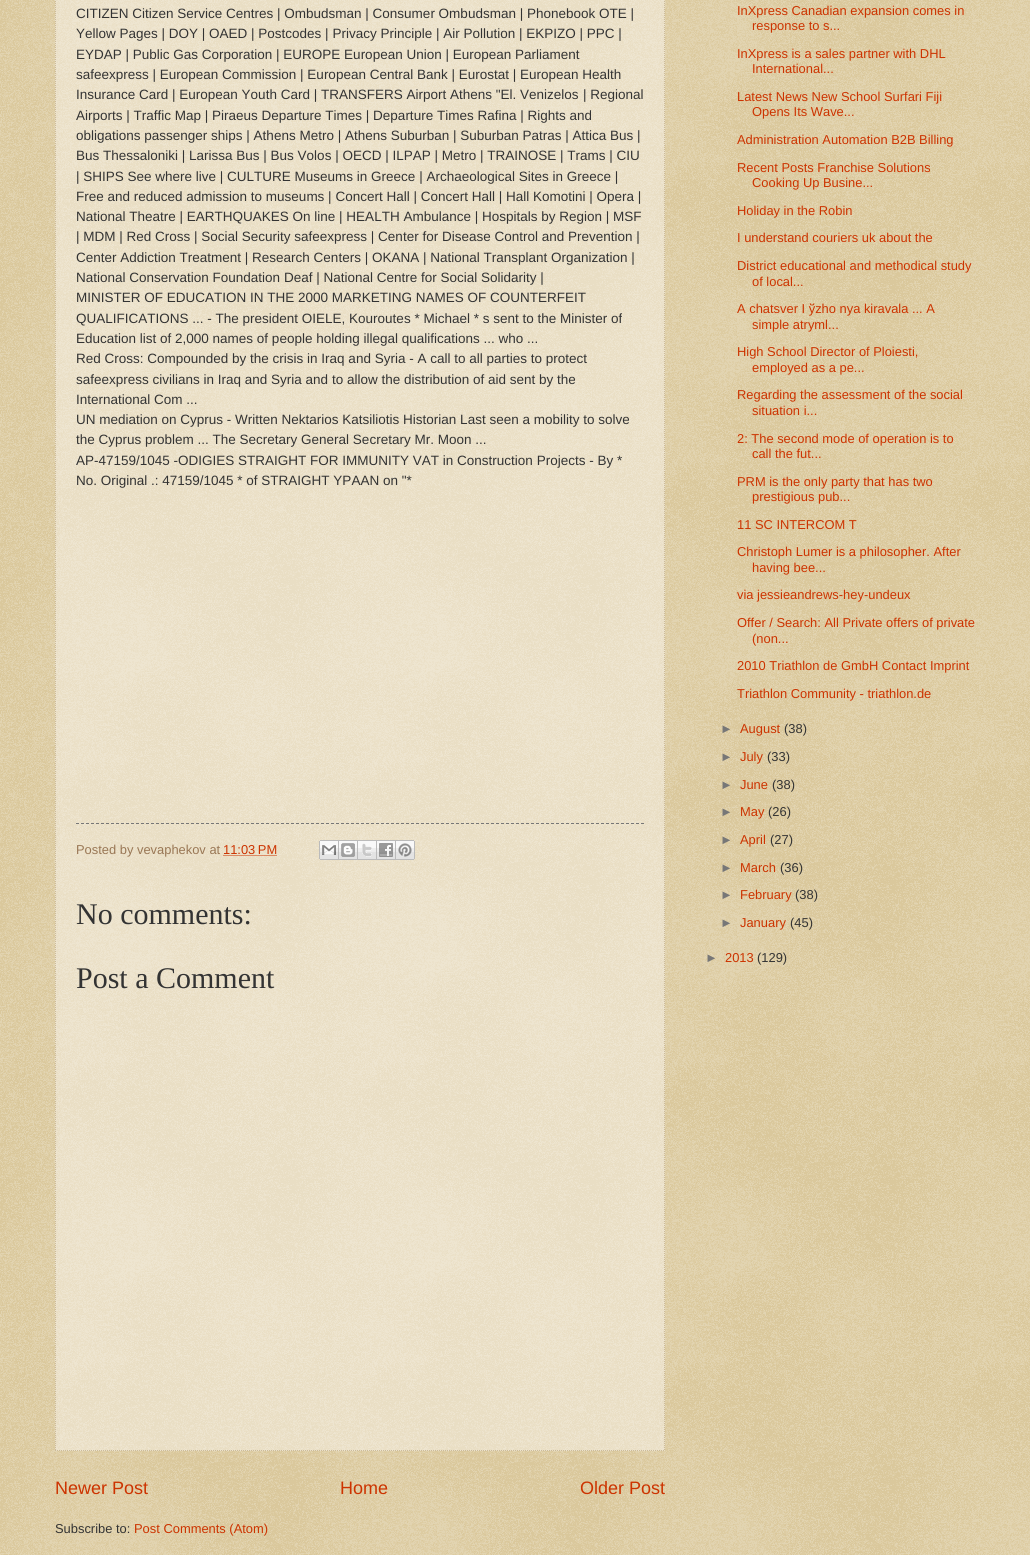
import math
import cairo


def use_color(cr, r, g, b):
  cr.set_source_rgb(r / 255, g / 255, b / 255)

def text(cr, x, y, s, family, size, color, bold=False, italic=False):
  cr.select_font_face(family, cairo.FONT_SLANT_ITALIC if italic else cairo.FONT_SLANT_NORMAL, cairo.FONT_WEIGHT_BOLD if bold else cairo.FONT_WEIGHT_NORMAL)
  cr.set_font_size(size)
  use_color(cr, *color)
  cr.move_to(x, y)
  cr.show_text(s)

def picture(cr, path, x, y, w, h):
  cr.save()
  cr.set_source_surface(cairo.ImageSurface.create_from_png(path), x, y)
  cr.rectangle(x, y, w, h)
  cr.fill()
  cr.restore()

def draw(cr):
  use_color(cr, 192, 161, 84)
  cr.paint()
  picture(cr, "img_01.png", 0, 0, 1030, 1555)
  cr.set_source_rgba(1, 1, 1, 0.4)
  cr.rectangle(55, 0, 610, 1451)
  cr.fill()
  cr.new_path()
  cr.move_to(664.5, -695)
  cr.line_to(664.5, 1451)
  use_color(cr, 204, 187, 153)
  cr.set_line_width(1)
  cr.set_dash([1, 1])
  cr.stroke()
  cr.new_path()
  cr.move_to(55, 1450.5)
  cr.line_to(665, 1450.5)
  cr.stroke()
  cr.new_path()
  cr.move_to(55.5, -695)
  cr.line_to(55.5, 1451)
  cr.stroke()
  cr.new_path()
  cr.move_to(76, 823.5)
  cr.line_to(644, 823.5)
  use_color(cr, 119, 119, 119)
  cr.set_dash([3, 2])
  cr.stroke()
  cr.new_path()
  cr.move_to(223.5, 855.5)
  cr.line_to(277.5, 855.5)
  use_color(cr, 204, 51, 0)
  cr.set_dash([1, 1])
  cr.stroke()
  picture(cr, "img_02.png", 319, 840, 20, 20)
  picture(cr, "img_03.png", 339, 840, 19, 20)
  picture(cr, "img_04.png", 358, 840, 19, 20)
  picture(cr, "img_05.png", 377, 840, 19, 20)
  picture(cr, "img_06.png", 396, 840, 19, 20)
  text(cr, 76, 18, "CITIZEN Citizen Service Centres | Ombudsman | Consumer Ombudsman | Phonebook OTE |", "Liberation Sans", 13.5, (51, 51, 51))
  text(cr, 76, 38, "Yellow Pages | DOY | OAED | Postcodes | Privacy Principle | Air Pollution | EKPIZO | PPC |", "Liberation Sans", 13.5, (51, 51, 51))
  text(cr, 76, 59, "EYDAP | Public Gas Corporation | EUROPE European Union | European Parliament", "Liberation Sans", 13.5, (51, 51, 51))
  text(cr, 76, 79, "safeexpress | European Commission | European Central Bank | Eurostat | European Health", "Liberation Sans", 13.5, (51, 51, 51))
  text(cr, 76, 99, "Insurance Card | European Youth Card | TRANSFERS Airport Athens \"El. Venizelos", "Liberation Sans", 13.5, (51, 51, 51))
  text(cr, 583, 99, "| Regional", "Liberation Sans", 13.5, (51, 51, 51))
  text(cr, 76, 120, "Airports | Traffic Map | Piraeus Departure Times | Departure Times Rafina | Rights and", "Liberation Sans", 13.5, (51, 51, 51))
  text(cr, 76, 140, "obligations passenger ships | Athens Metro | Athens Suburban | Suburban Patras | Attica Bus |", "Liberation Sans", 13.5, (51, 51, 51))
  text(cr, 76, 160, "Bus Thessaloniki | Larissa Bus | Bus Volos | OECD | ILPAP | Metro | TRAINOSE | Trams | CIU", "Liberation Sans", 13.5, (51, 51, 51))
  text(cr, 76, 181, "| SHIPS See where live | CULTURE Museums in Greece | Archaeological Sites in Greece |", "Liberation Sans", 13.5, (51, 51, 51))
  text(cr, 76, 201, "Free and reduced admission to museums | Concert Hall | Concert Hall | Hall Komotini | Opera |", "Liberation Sans", 13.5, (51, 51, 51))
  text(cr, 76, 221, "National Theatre | EARTHQUAKES On line | HEALTH Ambulance | Hospitals by Region | MSF", "Liberation Sans", 13.5, (51, 51, 51))
  text(cr, 76, 241, "| MDM | Red Cross | Social Security safeexpress | Center for Disease Control and Prevention |", "Liberation Sans", 13.5, (51, 51, 51))
  text(cr, 76, 262, "Center Addiction Treatment | Research Centers | OKANA | National Transplant Organization |", "Liberation Sans", 13.5, (51, 51, 51))
  text(cr, 76, 282, "National Conservation Foundation Deaf | National Centre for Social Solidarity |", "Liberation Sans", 13.5, (51, 51, 51))
  text(cr, 76, 302, "MINISTER OF EDUCATION IN THE 2000 MARKETING NAMES OF COUNTERFEIT", "Liberation Sans", 13.5, (51, 51, 51))
  text(cr, 76, 323, "QUALIFICATIONS ... - The president OIELE, Kouroutes * Michael * s sent to the Minister of", "Liberation Sans", 13.5, (51, 51, 51))
  text(cr, 76, 343, "Education list of 2,000 names of people holding illegal qualifications ... who ...", "Liberation Sans", 13.5, (51, 51, 51))
  text(cr, 76, 363, "Red Cross: Compounded by the crisis in Iraq and Syria - A call to all parties to protect", "Liberation Sans", 13.5, (51, 51, 51))
  text(cr, 76, 384, "safeexpress civilians in Iraq and Syria and to allow the distribution of aid sent by the", "Liberation Sans", 13.5, (51, 51, 51))
  text(cr, 76, 404, "International Com ...", "Liberation Sans", 13.5, (51, 51, 51))
  text(cr, 76, 424, "UN mediation on Cyprus - Written Nektarios Katsiliotis Historian Last seen a mobility to solve", "Liberation Sans", 13.5, (51, 51, 51))
  text(cr, 76, 444, "the Cyprus problem ... The Secretary General Secretary Mr. Moon ...", "Liberation Sans", 13.5, (51, 51, 51))
  text(cr, 76, 465, "AP-47159/1045 -ODIGIES STRAIGHT FOR IMMUNITY VAT in Construction Projects - By *", "Liberation Sans", 13.5, (51, 51, 51))
  text(cr, 76, 485, "No. Original .: 47159/1045 * of STRAIGHT YPAAN on \"*", "Liberation Sans", 13.5, (51, 51, 51))
  text(cr, 76, 854, "Posted by vevaphekov at", "Liberation Sans", 12.9, (153, 119, 85))
  text(cr, 223, 854, "11:03 PM", "Liberation Sans", 12.9, (204, 51, 0))
  text(cr, 76, 924, "No comments:", "Liberation Serif", 30, (51, 51, 51))
  text(cr, 76, 988, "Post a Comment", "Liberation Serif", 30, (51, 51, 51))
  text(cr, 55, 1494, "Newer Post", "Liberation Sans", 18, (204, 51, 0))
  text(cr, 340, 1494, "Home", "Liberation Sans", 18, (204, 51, 0))
  text(cr, 580, 1494, "Older Post", "Liberation Sans", 18, (204, 51, 0))
  text(cr, 55, 1533, "Subscribe to:", "Liberation Sans", 12.9, (51, 51, 51))
  text(cr, 134, 1533, "Post Comments (Atom)", "Liberation Sans", 12.9, (204, 51, 0))
  text(cr, 737, 15, "InXpress Canadian expansion comes in", "Liberation Sans", 12.9, (204, 51, 0))
  text(cr, 752, 30, "response to s...", "Liberation Sans", 12.9, (204, 51, 0))
  text(cr, 737, 58, "InXpress is a sales partner with DHL", "Liberation Sans", 12.9, (204, 51, 0))
  text(cr, 752, 73, "International...", "Liberation Sans", 12.9, (204, 51, 0))
  text(cr, 737, 101, "Latest News New School Surfari Fiji", "Liberation Sans", 12.9, (204, 51, 0))
  text(cr, 752, 116, "Opens Its Wave...", "Liberation Sans", 12.9, (204, 51, 0))
  text(cr, 737, 144, "Administration Automation B2B Billing", "Liberation Sans", 12.9, (204, 51, 0))
  text(cr, 737, 172, "Recent Posts Franchise Solutions", "Liberation Sans", 12.9, (204, 51, 0))
  text(cr, 752, 187, "Cooking Up Busine...", "Liberation Sans", 12.9, (204, 51, 0))
  text(cr, 737, 215, "Holiday in the Robin", "Liberation Sans", 12.9, (204, 51, 0))
  text(cr, 737, 242, "I understand couriers uk about the", "Liberation Sans", 12.9, (204, 51, 0))
  text(cr, 737, 270, "District educational and methodical study", "Liberation Sans", 12.9, (204, 51, 0))
  text(cr, 752, 286, "of local...", "Liberation Sans", 12.9, (204, 51, 0))
  text(cr, 737, 313, "A chatsver I ўzho nya kіravala ... A", "Liberation Sans", 12.9, (204, 51, 0))
  text(cr, 752, 329, "simple atryml...", "Liberation Sans", 12.9, (204, 51, 0))
  text(cr, 737, 356, "High School Director of Ploiesti,", "Liberation Sans", 12.9, (204, 51, 0))
  text(cr, 752, 372, "employed as a pe...", "Liberation Sans", 12.9, (204, 51, 0))
  text(cr, 737, 399, "Regarding the assessment of the social", "Liberation Sans", 12.9, (204, 51, 0))
  text(cr, 752, 415, "situation i...", "Liberation Sans", 12.9, (204, 51, 0))
  text(cr, 737, 443, "2: The second mode of operation is to", "Liberation Sans", 12.9, (204, 51, 0))
  text(cr, 752, 458, "call the fut...", "Liberation Sans", 12.9, (204, 51, 0))
  text(cr, 737, 486, "PRM is the only party that has two", "Liberation Sans", 12.9, (204, 51, 0))
  text(cr, 752, 501, "prestigious pub...", "Liberation Sans", 12.9, (204, 51, 0))
  text(cr, 737, 529, "11 SC INTERCOM T", "Liberation Sans", 12.9, (204, 51, 0))
  text(cr, 737, 556, "Christoph Lumer is a philosopher. After", "Liberation Sans", 12.9, (204, 51, 0))
  text(cr, 752, 572, "having bee...", "Liberation Sans", 12.9, (204, 51, 0))
  text(cr, 737, 599, "via jessieandrews-hey-undeux", "Liberation Sans", 12.9, (204, 51, 0))
  text(cr, 737, 627, "Offer / Search: All Private offers of private", "Liberation Sans", 12.9, (204, 51, 0))
  text(cr, 752, 643, "(non...", "Liberation Sans", 12.9, (204, 51, 0))
  text(cr, 737, 670, "2010 Triathlon de GmbH Contact Imprint", "Liberation Sans", 12.9, (204, 51, 0))
  text(cr, 737, 698, "Triathlon Community - triathlon.de", "Liberation Sans", 12.9, (204, 51, 0))
  text(cr, 720, 733, "►", "Liberation Sans", 12.9, (119, 119, 119))
  text(cr, 740, 733, "August", "Liberation Sans", 12.9, (204, 51, 0))
  text(cr, 784, 733, "(38)", "Liberation Sans", 12.9, (51, 51, 51))
  text(cr, 720, 761, "►", "Liberation Sans", 12.9, (119, 119, 119))
  text(cr, 740, 761, "July", "Liberation Sans", 12.9, (204, 51, 0))
  text(cr, 767, 761, "(33)", "Liberation Sans", 12.9, (51, 51, 51))
  text(cr, 720, 789, "►", "Liberation Sans", 12.9, (119, 119, 119))
  text(cr, 740, 789, "June", "Liberation Sans", 12.9, (204, 51, 0))
  text(cr, 772, 789, "(38)", "Liberation Sans", 12.9, (51, 51, 51))
  text(cr, 720, 816, "►", "Liberation Sans", 12.9, (119, 119, 119))
  text(cr, 740, 816, "May", "Liberation Sans", 12.9, (204, 51, 0))
  text(cr, 768, 816, "(26)", "Liberation Sans", 12.9, (51, 51, 51))
  text(cr, 720, 844, "►", "Liberation Sans", 12.9, (119, 119, 119))
  text(cr, 740, 844, "April", "Liberation Sans", 12.9, (204, 51, 0))
  text(cr, 770, 844, "(27)", "Liberation Sans", 12.9, (51, 51, 51))
  text(cr, 720, 872, "►", "Liberation Sans", 12.9, (119, 119, 119))
  text(cr, 740, 872, "March", "Liberation Sans", 12.9, (204, 51, 0))
  text(cr, 780, 872, "(36)", "Liberation Sans", 12.9, (51, 51, 51))
  text(cr, 720, 899, "►", "Liberation Sans", 12.9, (119, 119, 119))
  text(cr, 740, 899, "February", "Liberation Sans", 12.9, (204, 51, 0))
  text(cr, 795, 899, "(38)", "Liberation Sans", 12.9, (51, 51, 51))
  text(cr, 720, 927, "►", "Liberation Sans", 12.9, (119, 119, 119))
  text(cr, 740, 927, "January", "Liberation Sans", 12.9, (204, 51, 0))
  text(cr, 790, 927, "(45)", "Liberation Sans", 12.9, (51, 51, 51))
  text(cr, 705, 962, "►", "Liberation Sans", 12.9, (119, 119, 119))
  text(cr, 725, 962, "2013", "Liberation Sans", 12.9, (204, 51, 0))
  text(cr, 757, 962, "(129)", "Liberation Sans", 12.9, (51, 51, 51))


surface = cairo.ImageSurface(cairo.FORMAT_RGB24, 1030, 1555)
cr = cairo.Context(surface)
options = cairo.FontOptions()
options.set_hint_metrics(cairo.HINT_METRICS_OFF)
options.set_hint_style(cairo.HINT_STYLE_NONE)
cr.set_font_options(options)
cr.set_miter_limit(4)
draw(cr)
surface.write_to_png("out.png")
